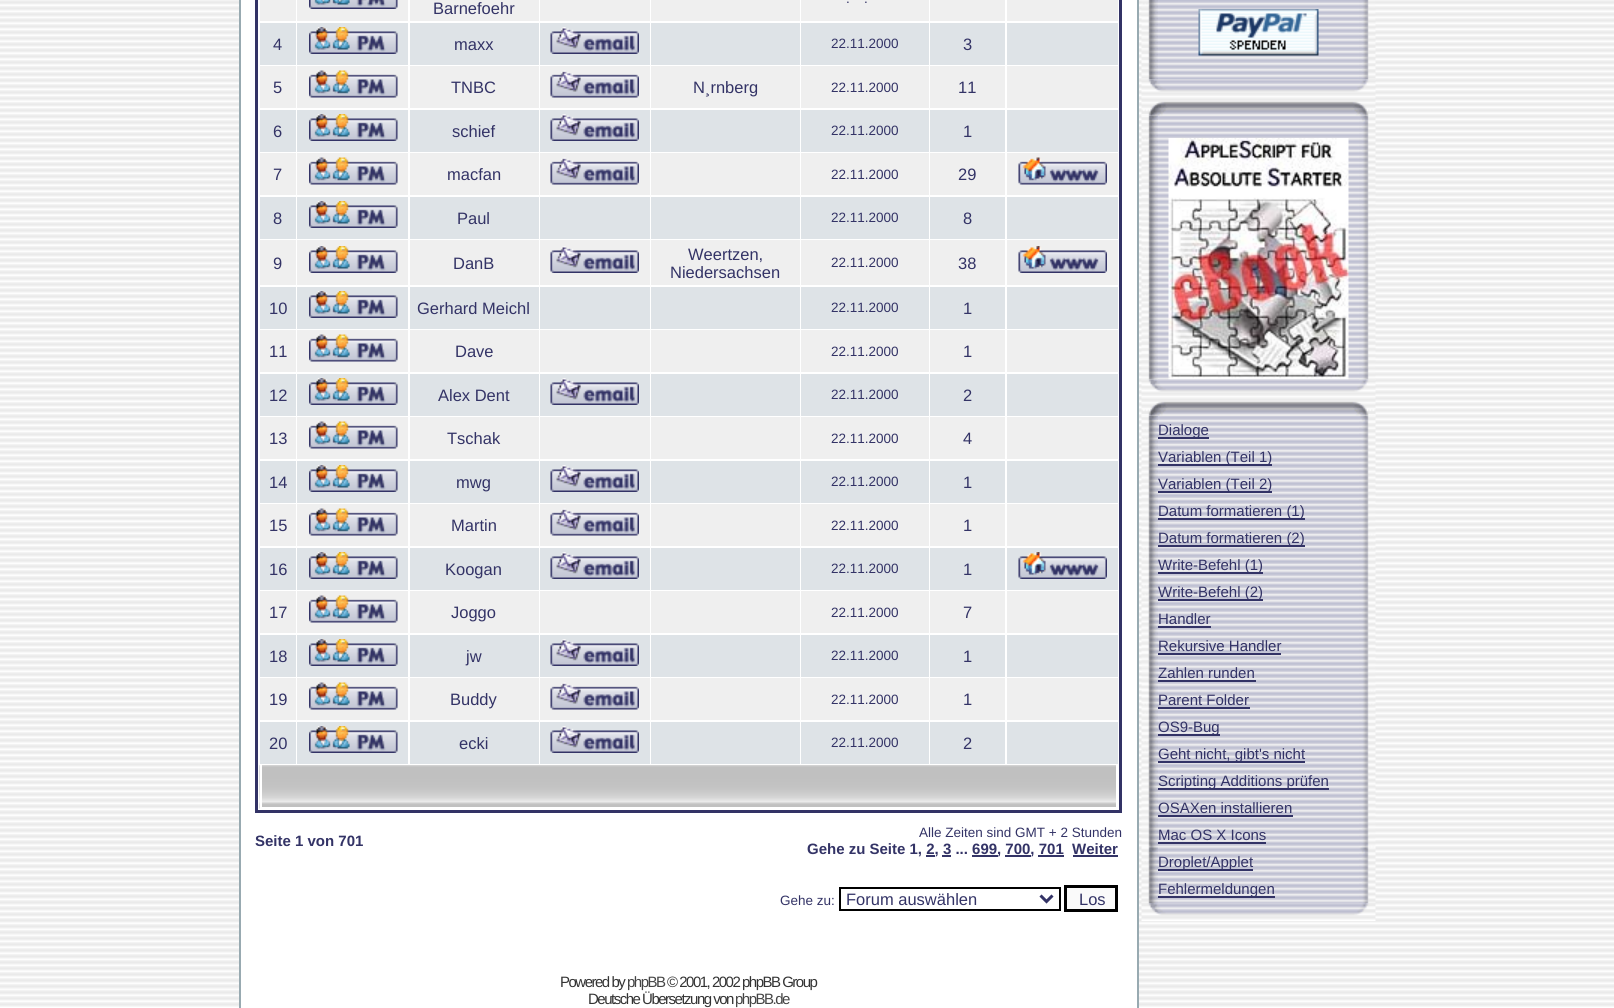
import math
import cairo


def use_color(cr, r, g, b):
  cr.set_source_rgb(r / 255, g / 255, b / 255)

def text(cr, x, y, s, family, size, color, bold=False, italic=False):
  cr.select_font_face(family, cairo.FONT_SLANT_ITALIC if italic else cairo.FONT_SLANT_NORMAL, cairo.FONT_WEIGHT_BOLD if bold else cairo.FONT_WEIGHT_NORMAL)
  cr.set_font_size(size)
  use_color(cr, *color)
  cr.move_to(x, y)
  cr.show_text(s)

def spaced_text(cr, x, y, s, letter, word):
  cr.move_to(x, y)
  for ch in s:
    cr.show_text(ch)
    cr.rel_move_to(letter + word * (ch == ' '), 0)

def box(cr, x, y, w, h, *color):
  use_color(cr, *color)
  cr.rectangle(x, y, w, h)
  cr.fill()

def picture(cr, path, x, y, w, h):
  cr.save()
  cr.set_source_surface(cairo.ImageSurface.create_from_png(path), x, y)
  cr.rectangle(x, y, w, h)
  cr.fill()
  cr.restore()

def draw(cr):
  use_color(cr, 255, 255, 255)
  cr.paint()
  picture(cr, "img_01.png", 0, 0, 1614, 1007)
  box(cr, 241, 0, 896, 1007, 255, 255, 255)
  cr.rectangle(240, -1, 898, 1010)
  use_color(cr, 152, 170, 177)
  cr.stroke()
  cr.rectangle(256.5, -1.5, 864, 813)
  use_color(cr, 51, 51, 102)
  cr.set_line_width(3)
  cr.stroke()
  box(cr, 260, 0, 36, 21, 239, 239, 239)
  box(cr, 297, 0, 111, 21, 239, 239, 239)
  picture(cr, "img_02.png", 309, 0, 89, 9)
  box(cr, 410, 0, 129, 21, 239, 239, 239)
  box(cr, 540, 0, 110, 21, 239, 239, 239)
  box(cr, 651, 0, 149, 21, 239, 239, 239)
  box(cr, 801, 0, 128, 21, 239, 239, 239)
  box(cr, 930, 0, 75, 21, 239, 239, 239)
  box(cr, 1007, 0, 111, 21, 239, 239, 239)
  box(cr, 260, 23, 36, 42, 222, 227, 231)
  box(cr, 297, 23, 111, 42, 222, 227, 231)
  picture(cr, "img_03.png", 309, 27, 89, 27)
  box(cr, 410, 23, 129, 42, 222, 227, 231)
  box(cr, 540, 23, 110, 42, 222, 227, 231)
  picture(cr, "img_04.png", 550, 27, 89, 27)
  box(cr, 651, 23, 149, 42, 222, 227, 231)
  box(cr, 801, 23, 128, 42, 222, 227, 231)
  box(cr, 930, 23, 75, 42, 222, 227, 231)
  box(cr, 1007, 23, 111, 42, 222, 227, 231)
  box(cr, 260, 66, 36, 42, 239, 239, 239)
  box(cr, 297, 66, 111, 42, 239, 239, 239)
  picture(cr, "img_05.png", 309, 70, 89, 28)
  box(cr, 410, 66, 129, 42, 239, 239, 239)
  box(cr, 540, 66, 110, 42, 239, 239, 239)
  picture(cr, "img_06.png", 550, 70, 89, 28)
  box(cr, 651, 66, 149, 42, 239, 239, 239)
  box(cr, 801, 66, 128, 42, 239, 239, 239)
  box(cr, 930, 66, 75, 42, 239, 239, 239)
  box(cr, 1007, 66, 111, 42, 239, 239, 239)
  box(cr, 260, 110, 36, 42, 222, 227, 231)
  box(cr, 297, 110, 111, 42, 222, 227, 231)
  picture(cr, "img_03.png", 309, 114, 89, 27)
  box(cr, 410, 110, 129, 42, 222, 227, 231)
  box(cr, 540, 110, 110, 42, 222, 227, 231)
  picture(cr, "img_04.png", 550, 114, 89, 27)
  box(cr, 651, 110, 149, 42, 222, 227, 231)
  box(cr, 801, 110, 128, 42, 222, 227, 231)
  box(cr, 930, 110, 75, 42, 222, 227, 231)
  box(cr, 1007, 110, 111, 42, 222, 227, 231)
  box(cr, 260, 153, 36, 42, 239, 239, 239)
  box(cr, 297, 153, 111, 42, 239, 239, 239)
  picture(cr, "img_05.png", 309, 157, 89, 28)
  box(cr, 410, 153, 129, 42, 239, 239, 239)
  box(cr, 540, 153, 110, 42, 239, 239, 239)
  picture(cr, "img_06.png", 550, 157, 89, 28)
  box(cr, 651, 153, 149, 42, 239, 239, 239)
  box(cr, 801, 153, 128, 42, 239, 239, 239)
  box(cr, 930, 153, 75, 42, 239, 239, 239)
  box(cr, 1007, 153, 111, 42, 239, 239, 239)
  picture(cr, "img_07.png", 1018, 157, 89, 28)
  box(cr, 260, 197, 36, 42, 222, 227, 231)
  box(cr, 297, 197, 111, 42, 222, 227, 231)
  picture(cr, "img_03.png", 309, 201, 89, 27)
  box(cr, 410, 197, 129, 42, 222, 227, 231)
  box(cr, 540, 197, 110, 42, 222, 227, 231)
  box(cr, 651, 197, 149, 42, 222, 227, 231)
  box(cr, 801, 197, 128, 42, 222, 227, 231)
  box(cr, 930, 197, 75, 42, 222, 227, 231)
  box(cr, 1007, 197, 111, 42, 222, 227, 231)
  box(cr, 260, 240, 36, 45, 239, 239, 239)
  box(cr, 297, 240, 111, 45, 239, 239, 239)
  picture(cr, "img_08.png", 309, 246, 89, 27)
  box(cr, 410, 240, 129, 45, 239, 239, 239)
  box(cr, 540, 240, 110, 45, 239, 239, 239)
  picture(cr, "img_09.png", 550, 246, 89, 27)
  box(cr, 651, 240, 149, 45, 239, 239, 239)
  box(cr, 801, 240, 128, 45, 239, 239, 239)
  box(cr, 930, 240, 75, 45, 239, 239, 239)
  box(cr, 1007, 240, 111, 45, 239, 239, 239)
  picture(cr, "img_10.png", 1018, 246, 89, 27)
  box(cr, 260, 287, 36, 42, 222, 227, 231)
  box(cr, 297, 287, 111, 42, 222, 227, 231)
  picture(cr, "img_03.png", 309, 291, 89, 27)
  box(cr, 410, 287, 129, 42, 222, 227, 231)
  box(cr, 540, 287, 110, 42, 222, 227, 231)
  box(cr, 651, 287, 149, 42, 222, 227, 231)
  box(cr, 801, 287, 128, 42, 222, 227, 231)
  box(cr, 930, 287, 75, 42, 222, 227, 231)
  box(cr, 1007, 287, 111, 42, 222, 227, 231)
  box(cr, 260, 330, 36, 42, 239, 239, 239)
  box(cr, 297, 330, 111, 42, 239, 239, 239)
  picture(cr, "img_05.png", 309, 334, 89, 28)
  box(cr, 410, 330, 129, 42, 239, 239, 239)
  box(cr, 540, 330, 110, 42, 239, 239, 239)
  box(cr, 651, 330, 149, 42, 239, 239, 239)
  box(cr, 801, 330, 128, 42, 239, 239, 239)
  box(cr, 930, 330, 75, 42, 239, 239, 239)
  box(cr, 1007, 330, 111, 42, 239, 239, 239)
  box(cr, 260, 374, 36, 42, 222, 227, 231)
  box(cr, 297, 374, 111, 42, 222, 227, 231)
  picture(cr, "img_03.png", 309, 378, 89, 27)
  box(cr, 410, 374, 129, 42, 222, 227, 231)
  box(cr, 540, 374, 110, 42, 222, 227, 231)
  picture(cr, "img_04.png", 550, 378, 89, 27)
  box(cr, 651, 374, 149, 42, 222, 227, 231)
  box(cr, 801, 374, 128, 42, 222, 227, 231)
  box(cr, 930, 374, 75, 42, 222, 227, 231)
  box(cr, 1007, 374, 111, 42, 222, 227, 231)
  box(cr, 260, 417, 36, 42, 239, 239, 239)
  box(cr, 297, 417, 111, 42, 239, 239, 239)
  picture(cr, "img_05.png", 309, 421, 89, 28)
  box(cr, 410, 417, 129, 42, 239, 239, 239)
  box(cr, 540, 417, 110, 42, 239, 239, 239)
  box(cr, 651, 417, 149, 42, 239, 239, 239)
  box(cr, 801, 417, 128, 42, 239, 239, 239)
  box(cr, 930, 417, 75, 42, 239, 239, 239)
  box(cr, 1007, 417, 111, 42, 239, 239, 239)
  box(cr, 260, 461, 36, 42, 222, 227, 231)
  box(cr, 297, 461, 111, 42, 222, 227, 231)
  picture(cr, "img_03.png", 309, 465, 89, 27)
  box(cr, 410, 461, 129, 42, 222, 227, 231)
  box(cr, 540, 461, 110, 42, 222, 227, 231)
  picture(cr, "img_04.png", 550, 465, 89, 27)
  box(cr, 651, 461, 149, 42, 222, 227, 231)
  box(cr, 801, 461, 128, 42, 222, 227, 231)
  box(cr, 930, 461, 75, 42, 222, 227, 231)
  box(cr, 1007, 461, 111, 42, 222, 227, 231)
  box(cr, 260, 504, 36, 42, 239, 239, 239)
  box(cr, 297, 504, 111, 42, 239, 239, 239)
  picture(cr, "img_05.png", 309, 508, 89, 28)
  box(cr, 410, 504, 129, 42, 239, 239, 239)
  box(cr, 540, 504, 110, 42, 239, 239, 239)
  picture(cr, "img_06.png", 550, 508, 89, 28)
  box(cr, 651, 504, 149, 42, 239, 239, 239)
  box(cr, 801, 504, 128, 42, 239, 239, 239)
  box(cr, 930, 504, 75, 42, 239, 239, 239)
  box(cr, 1007, 504, 111, 42, 239, 239, 239)
  box(cr, 260, 548, 36, 42, 222, 227, 231)
  box(cr, 297, 548, 111, 42, 222, 227, 231)
  picture(cr, "img_03.png", 309, 552, 89, 27)
  box(cr, 410, 548, 129, 42, 222, 227, 231)
  box(cr, 540, 548, 110, 42, 222, 227, 231)
  picture(cr, "img_04.png", 550, 552, 89, 27)
  box(cr, 651, 548, 149, 42, 222, 227, 231)
  box(cr, 801, 548, 128, 42, 222, 227, 231)
  box(cr, 930, 548, 75, 42, 222, 227, 231)
  box(cr, 1007, 548, 111, 42, 222, 227, 231)
  picture(cr, "img_11.png", 1018, 552, 89, 27)
  box(cr, 260, 591, 36, 42, 239, 239, 239)
  box(cr, 297, 591, 111, 42, 239, 239, 239)
  picture(cr, "img_05.png", 309, 595, 89, 28)
  box(cr, 410, 591, 129, 42, 239, 239, 239)
  box(cr, 540, 591, 110, 42, 239, 239, 239)
  box(cr, 651, 591, 149, 42, 239, 239, 239)
  box(cr, 801, 591, 128, 42, 239, 239, 239)
  box(cr, 930, 591, 75, 42, 239, 239, 239)
  box(cr, 1007, 591, 111, 42, 239, 239, 239)
  box(cr, 260, 635, 36, 42, 222, 227, 231)
  box(cr, 297, 635, 111, 42, 222, 227, 231)
  picture(cr, "img_03.png", 309, 639, 89, 27)
  box(cr, 410, 635, 129, 42, 222, 227, 231)
  box(cr, 540, 635, 110, 42, 222, 227, 231)
  picture(cr, "img_04.png", 550, 639, 89, 27)
  box(cr, 651, 635, 149, 42, 222, 227, 231)
  box(cr, 801, 635, 128, 42, 222, 227, 231)
  box(cr, 930, 635, 75, 42, 222, 227, 231)
  box(cr, 1007, 635, 111, 42, 222, 227, 231)
  box(cr, 260, 678, 36, 42, 239, 239, 239)
  box(cr, 297, 678, 111, 42, 239, 239, 239)
  picture(cr, "img_05.png", 309, 682, 89, 28)
  box(cr, 410, 678, 129, 42, 239, 239, 239)
  box(cr, 540, 678, 110, 42, 239, 239, 239)
  picture(cr, "img_06.png", 550, 682, 89, 28)
  box(cr, 651, 678, 149, 42, 239, 239, 239)
  box(cr, 801, 678, 128, 42, 239, 239, 239)
  box(cr, 930, 678, 75, 42, 239, 239, 239)
  box(cr, 1007, 678, 111, 42, 239, 239, 239)
  box(cr, 260, 722, 36, 42, 222, 227, 231)
  box(cr, 297, 722, 111, 42, 222, 227, 231)
  picture(cr, "img_03.png", 309, 726, 89, 27)
  box(cr, 410, 722, 129, 42, 222, 227, 231)
  box(cr, 540, 722, 110, 42, 222, 227, 231)
  picture(cr, "img_04.png", 550, 726, 89, 27)
  box(cr, 651, 722, 149, 42, 222, 227, 231)
  box(cr, 801, 722, 128, 42, 222, 227, 231)
  box(cr, 930, 722, 75, 42, 222, 227, 231)
  box(cr, 1007, 722, 111, 42, 222, 227, 231)
  picture(cr, "img_12.png", 259, 765, 857, 44)
  box(cr, 260, 807, 858, 2, 255, 255, 255)
  box(cr, 260, 765, 2, 44, 255, 255, 255)
  box(cr, 926, 855, 9, 2, 51, 51, 102)
  box(cr, 942, 855, 9, 2, 51, 51, 102)
  box(cr, 972, 855, 26, 2, 51, 51, 102)
  box(cr, 1005, 855, 26, 2, 51, 51, 102)
  box(cr, 1038, 855, 26, 2, 51, 51, 102)
  box(cr, 1073, 855, 45, 2, 51, 51, 102)
  cr.rectangle(840, 888, 220, 22)
  use_color(cr, 0, 0, 0)
  cr.set_line_width(2)
  cr.stroke()
  cr.new_path()
  cr.move_to(1040.5, 895.5)
  cr.line_to(1046.5, 901.5)
  cr.line_to(1052.5, 895.5)
  use_color(cr, 51, 51, 102)
  cr.set_line_width(3)
  cr.stroke()
  use_color(cr, 250, 250, 250)
  cr.rectangle(1065.5, 886.5, 51, 24)
  cr.fill_preserve()
  use_color(cr, 0, 0, 0)
  cr.stroke()
  picture(cr, "img_13.png", 1141, 0, 17, 80)
  picture(cr, "img_14.png", 1158, 0, 201, 80)
  picture(cr, "img_15.png", 1198, 9, 121, 47)
  picture(cr, "img_16.png", 1359, 0, 17, 80)
  picture(cr, "img_17.png", 1141, 79, 235, 19)
  picture(cr, "img_19.png", 1141, 115, 17, 265)
  picture(cr, "img_20.png", 1158, 115, 201, 265)
  picture(cr, "img_22.png", 1359, 115, 17, 265)
  picture(cr, "img_18.png", 1141, 98, 235, 18)
  picture(cr, "img_21.png", 1168, 138, 181, 242)
  picture(cr, "img_23.png", 1141, 379, 235, 19)
  picture(cr, "img_25.png", 1141, 415, 17, 488)
  picture(cr, "img_26.png", 1158, 415, 201, 488)
  picture(cr, "img_27.png", 1359, 415, 17, 488)
  picture(cr, "img_24.png", 1141, 398, 235, 18)
  box(cr, 1158, 437, 51, 2, 51, 51, 102)
  box(cr, 1158, 464, 114, 2, 51, 51, 102)
  box(cr, 1158, 491, 114, 2, 51, 51, 102)
  box(cr, 1158, 518, 147, 2, 51, 51, 102)
  box(cr, 1158, 545, 147, 2, 51, 51, 102)
  box(cr, 1158, 572, 105, 2, 51, 51, 102)
  box(cr, 1158, 599, 105, 2, 51, 51, 102)
  box(cr, 1158, 626, 53, 2, 51, 51, 102)
  box(cr, 1158, 653, 123, 2, 51, 51, 102)
  box(cr, 1158, 680, 98, 2, 51, 51, 102)
  box(cr, 1158, 707, 92, 2, 51, 51, 102)
  box(cr, 1158, 734, 62, 2, 51, 51, 102)
  box(cr, 1158, 761, 147, 2, 51, 51, 102)
  box(cr, 1158, 788, 171, 2, 51, 51, 102)
  box(cr, 1158, 815, 135, 2, 51, 51, 102)
  box(cr, 1158, 842, 108, 2, 51, 51, 102)
  box(cr, 1158, 869, 95, 2, 51, 51, 102)
  box(cr, 1158, 896, 117, 2, 51, 51, 102)
  picture(cr, "img_28.png", 1141, 903, 235, 18)
  text(cr, 433, 14, "Barnefoehr", "Liberation Sans", 16.5, (51, 51, 102))
  text(cr, 846, 3, ".", "Liberation Sans", 13.5, (51, 51, 102))
  text(cr, 864, 3, ".", "Liberation Sans", 13.5, (51, 51, 102))
  text(cr, 273, 50, "4", "Liberation Sans", 16.5, (51, 51, 102))
  text(cr, 454, 50, "maxx", "Liberation Sans", 16.5, (51, 51, 102))
  text(cr, 831, 48, "22.11.2000", "Liberation Sans", 13.5, (51, 51, 102))
  text(cr, 963, 50, "3", "Liberation Sans", 16.5, (51, 51, 102))
  text(cr, 273, 93, "5", "Liberation Sans", 16.5, (51, 51, 102))
  text(cr, 451, 93, "TNBC", "Liberation Sans", 16.5, (51, 51, 102))
  text(cr, 693, 93, "N¸rnberg", "Liberation Sans", 16.5, (51, 51, 102))
  text(cr, 831, 92, "22.11.2000", "Liberation Sans", 13.5, (51, 51, 102))
  text(cr, 958, 93, "11", "Liberation Sans", 16.5, (51, 51, 102))
  text(cr, 273, 137, "6", "Liberation Sans", 16.5, (51, 51, 102))
  text(cr, 452, 137, "schief", "Liberation Sans", 16.5, (51, 51, 102))
  text(cr, 831, 135, "22.11.2000", "Liberation Sans", 13.5, (51, 51, 102))
  text(cr, 963, 137, "1", "Liberation Sans", 16.5, (51, 51, 102))
  text(cr, 273, 180, "7", "Liberation Sans", 16.5, (51, 51, 102))
  text(cr, 447, 180, "macfan", "Liberation Sans", 16.5, (51, 51, 102))
  text(cr, 831, 179, "22.11.2000", "Liberation Sans", 13.5, (51, 51, 102))
  text(cr, 958, 180, "29", "Liberation Sans", 16.5, (51, 51, 102))
  text(cr, 273, 224, "8", "Liberation Sans", 16.5, (51, 51, 102))
  text(cr, 457, 224, "Paul", "Liberation Sans", 16.5, (51, 51, 102))
  text(cr, 831, 222, "22.11.2000", "Liberation Sans", 13.5, (51, 51, 102))
  text(cr, 963, 224, "8", "Liberation Sans", 16.5, (51, 51, 102))
  text(cr, 273, 269, "9", "Liberation Sans", 16.5, (51, 51, 102))
  text(cr, 453, 269, "DanB", "Liberation Sans", 16.5, (51, 51, 102))
  text(cr, 688, 260, "Weertzen,", "Liberation Sans", 16.5, (51, 51, 102))
  text(cr, 670, 278, "Niedersachsen", "Liberation Sans", 16.5, (51, 51, 102))
  text(cr, 831, 267, "22.11.2000", "Liberation Sans", 13.5, (51, 51, 102))
  text(cr, 958, 269, "38", "Liberation Sans", 16.5, (51, 51, 102))
  text(cr, 269, 314, "10", "Liberation Sans", 16.5, (51, 51, 102))
  text(cr, 417, 314, "Gerhard Meichl", "Liberation Sans", 16.5, (51, 51, 102))
  text(cr, 831, 312, "22.11.2000", "Liberation Sans", 13.5, (51, 51, 102))
  text(cr, 963, 314, "1", "Liberation Sans", 16.5, (51, 51, 102))
  text(cr, 269, 357, "11", "Liberation Sans", 16.5, (51, 51, 102))
  text(cr, 455, 357, "Dave", "Liberation Sans", 16.5, (51, 51, 102))
  text(cr, 831, 356, "22.11.2000", "Liberation Sans", 13.5, (51, 51, 102))
  text(cr, 963, 357, "1", "Liberation Sans", 16.5, (51, 51, 102))
  text(cr, 269, 401, "12", "Liberation Sans", 16.5, (51, 51, 102))
  text(cr, 438, 401, "Alex Dent", "Liberation Sans", 16.5, (51, 51, 102))
  text(cr, 831, 399, "22.11.2000", "Liberation Sans", 13.5, (51, 51, 102))
  text(cr, 963, 401, "2", "Liberation Sans", 16.5, (51, 51, 102))
  text(cr, 269, 444, "13", "Liberation Sans", 16.5, (51, 51, 102))
  text(cr, 447, 444, "Tschak", "Liberation Sans", 16.5, (51, 51, 102))
  text(cr, 831, 443, "22.11.2000", "Liberation Sans", 13.5, (51, 51, 102))
  text(cr, 963, 444, "4", "Liberation Sans", 16.5, (51, 51, 102))
  text(cr, 269, 488, "14", "Liberation Sans", 16.5, (51, 51, 102))
  text(cr, 456, 488, "mwg", "Liberation Sans", 16.5, (51, 51, 102))
  text(cr, 831, 486, "22.11.2000", "Liberation Sans", 13.5, (51, 51, 102))
  text(cr, 963, 488, "1", "Liberation Sans", 16.5, (51, 51, 102))
  text(cr, 269, 531, "15", "Liberation Sans", 16.5, (51, 51, 102))
  text(cr, 451, 531, "Martin", "Liberation Sans", 16.5, (51, 51, 102))
  text(cr, 831, 530, "22.11.2000", "Liberation Sans", 13.5, (51, 51, 102))
  text(cr, 963, 531, "1", "Liberation Sans", 16.5, (51, 51, 102))
  text(cr, 269, 575, "16", "Liberation Sans", 16.5, (51, 51, 102))
  text(cr, 445, 575, "Koogan", "Liberation Sans", 16.5, (51, 51, 102))
  text(cr, 831, 573, "22.11.2000", "Liberation Sans", 13.5, (51, 51, 102))
  text(cr, 963, 575, "1", "Liberation Sans", 16.5, (51, 51, 102))
  text(cr, 269, 618, "17", "Liberation Sans", 16.5, (51, 51, 102))
  text(cr, 451, 618, "Joggo", "Liberation Sans", 16.5, (51, 51, 102))
  text(cr, 831, 617, "22.11.2000", "Liberation Sans", 13.5, (51, 51, 102))
  text(cr, 963, 618, "7", "Liberation Sans", 16.5, (51, 51, 102))
  text(cr, 269, 662, "18", "Liberation Sans", 16.5, (51, 51, 102))
  text(cr, 466, 662, "jw", "Liberation Sans", 16.5, (51, 51, 102))
  text(cr, 831, 660, "22.11.2000", "Liberation Sans", 13.5, (51, 51, 102))
  text(cr, 963, 662, "1", "Liberation Sans", 16.5, (51, 51, 102))
  text(cr, 269, 705, "19", "Liberation Sans", 16.5, (51, 51, 102))
  text(cr, 450, 705, "Buddy", "Liberation Sans", 16.5, (51, 51, 102))
  text(cr, 831, 704, "22.11.2000", "Liberation Sans", 13.5, (51, 51, 102))
  text(cr, 963, 705, "1", "Liberation Sans", 16.5, (51, 51, 102))
  text(cr, 269, 749, "20", "Liberation Sans", 16.5, (51, 51, 102))
  text(cr, 459, 749, "ecki", "Liberation Sans", 16.5, (51, 51, 102))
  text(cr, 831, 747, "22.11.2000", "Liberation Sans", 13.5, (51, 51, 102))
  text(cr, 963, 749, "2", "Liberation Sans", 16.5, (51, 51, 102))
  text(cr, 255, 846, "Seite 1 von 701", "Liberation Sans", 15, (51, 51, 102), bold=True)
  text(cr, 919, 837, "Alle Zeiten sind GMT + 2 Stunden", "Liberation Sans", 13.5, (51, 51, 102))
  text(cr, 807, 854, "Gehe zu Seite 1, 2, 3 ... 699", "Liberation Sans", 15, (51, 51, 102), bold=True)
  text(cr, 997, 854, ", 700, 701", "Liberation Sans", 15, (51, 51, 102), bold=True)
  text(cr, 1072, 854, "Weiter", "Liberation Sans", 15, (51, 51, 102), bold=True)
  text(cr, 780, 905, "Gehe zu:", "Liberation Sans", 13.5, (51, 51, 102))
  text(cr, 846, 905, "Forum auswählen", "Liberation Sans", 16.5, (51, 51, 102))
  text(cr, 1079, 905, "Los", "Liberation Sans", 16.5, (51, 51, 102))
  cr.set_font_size(15)
  use_color(cr, 51, 51, 51)
  spaced_text(cr, 560, 987, "Powered by", -1.5, 0)
  use_color(cr, 68, 68, 68)
  spaced_text(cr, 627, 987, "phpBB", -1.5, 0)
  use_color(cr, 51, 51, 51)
  spaced_text(cr, 667, 987, "© 2001, 2002 phpBB Group", -1.5, 0)
  spaced_text(cr, 588, 1004, "Deutsche Übersetzung von", -1.5, 0)
  use_color(cr, 68, 68, 68)
  spaced_text(cr, 735, 1004, "phpBB.de", -1.5, 0)
  text(cr, 1158, 435, "Dialoge", "Liberation Sans", 15, (51, 51, 102))
  text(cr, 1158, 462, "Variablen (Teil 1)", "Liberation Sans", 15, (51, 51, 102))
  text(cr, 1158, 489, "Variablen (Teil 2)", "Liberation Sans", 15, (51, 51, 102))
  text(cr, 1158, 516, "Datum formatieren (1)", "Liberation Sans", 15, (51, 51, 102))
  text(cr, 1158, 543, "Datum formatieren (2)", "Liberation Sans", 15, (51, 51, 102))
  text(cr, 1158, 570, "Write-Befehl (1)", "Liberation Sans", 15, (51, 51, 102))
  text(cr, 1158, 597, "Write-Befehl (2)", "Liberation Sans", 15, (51, 51, 102))
  text(cr, 1158, 624, "Handler", "Liberation Sans", 15, (51, 51, 102))
  text(cr, 1158, 651, "Rekursive Handler", "Liberation Sans", 15, (51, 51, 102))
  text(cr, 1158, 678, "Zahlen runden", "Liberation Sans", 15, (51, 51, 102))
  text(cr, 1158, 705, "Parent Folder", "Liberation Sans", 15, (51, 51, 102))
  text(cr, 1158, 732, "OS9-Bug", "Liberation Sans", 15, (51, 51, 102))
  text(cr, 1158, 759, "Geht nicht, gibt's nicht", "Liberation Sans", 15, (51, 51, 102))
  text(cr, 1158, 786, "Scripting Additions prüfen", "Liberation Sans", 15, (51, 51, 102))
  text(cr, 1158, 813, "OSAXen installieren", "Liberation Sans", 15, (51, 51, 102))
  text(cr, 1158, 840, "Mac OS X Icons", "Liberation Sans", 15, (51, 51, 102))
  text(cr, 1158, 867, "Droplet/Applet", "Liberation Sans", 15, (51, 51, 102))
  text(cr, 1158, 894, "Fehlermeldungen", "Liberation Sans", 15, (51, 51, 102))


surface = cairo.ImageSurface(cairo.FORMAT_RGB24, 1614, 1008)
cr = cairo.Context(surface)
options = cairo.FontOptions()
options.set_hint_metrics(cairo.HINT_METRICS_OFF)
options.set_hint_style(cairo.HINT_STYLE_NONE)
cr.set_font_options(options)
cr.set_miter_limit(4)
draw(cr)
surface.write_to_png("out.png")
